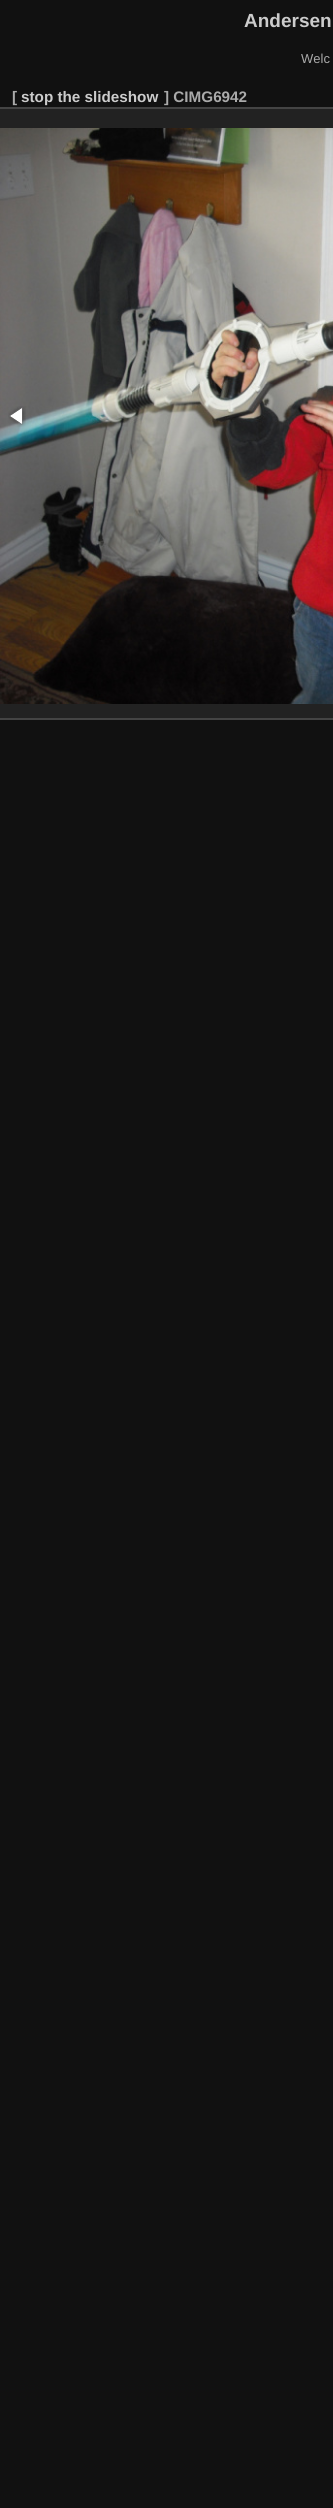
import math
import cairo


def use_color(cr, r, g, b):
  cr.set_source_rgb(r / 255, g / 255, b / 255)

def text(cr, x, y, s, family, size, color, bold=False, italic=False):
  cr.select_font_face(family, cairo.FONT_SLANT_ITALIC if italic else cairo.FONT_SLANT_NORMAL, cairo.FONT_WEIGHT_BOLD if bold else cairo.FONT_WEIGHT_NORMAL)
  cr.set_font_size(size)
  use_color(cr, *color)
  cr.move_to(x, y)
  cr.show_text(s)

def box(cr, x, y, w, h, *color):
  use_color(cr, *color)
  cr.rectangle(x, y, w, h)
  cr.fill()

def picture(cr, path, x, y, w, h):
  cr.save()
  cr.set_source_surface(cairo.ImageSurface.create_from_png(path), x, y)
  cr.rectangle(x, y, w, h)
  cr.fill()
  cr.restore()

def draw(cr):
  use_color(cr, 17, 17, 17)
  cr.paint()
  box(cr, 0, 107, 333, 2, 68, 68, 68)
  box(cr, 0, 109, 333, 609, 34, 34, 34)
  box(cr, 0, 718, 333, 2, 68, 68, 68)
  picture(cr, "img_01.png", 0, 128, 333, 576)
  picture(cr, "img_02.png", 8, 406, 18, 21)
  text(cr, 244, 27, "Andersen", "Liberation Sans", 19, (204, 204, 204), bold=True)
  text(cr, 301, 63, "Welc", "Liberation Sans", 13, (170, 170, 170))
  text(cr, 12, 102, "[", "Liberation Sans", 15.25, (170, 170, 170), bold=True)
  text(cr, 21, 102, "stop the slideshow", "Liberation Sans", 15.25, (204, 204, 204), bold=True)
  text(cr, 164, 102, "] CIMG6942", "Liberation Sans", 15.25, (170, 170, 170), bold=True)


surface = cairo.ImageSurface(cairo.FORMAT_RGB24, 333, 2508)
cr = cairo.Context(surface)
options = cairo.FontOptions()
options.set_hint_metrics(cairo.HINT_METRICS_OFF)
options.set_hint_style(cairo.HINT_STYLE_NONE)
cr.set_font_options(options)
cr.set_miter_limit(4)
draw(cr)
surface.write_to_png("out.png")
